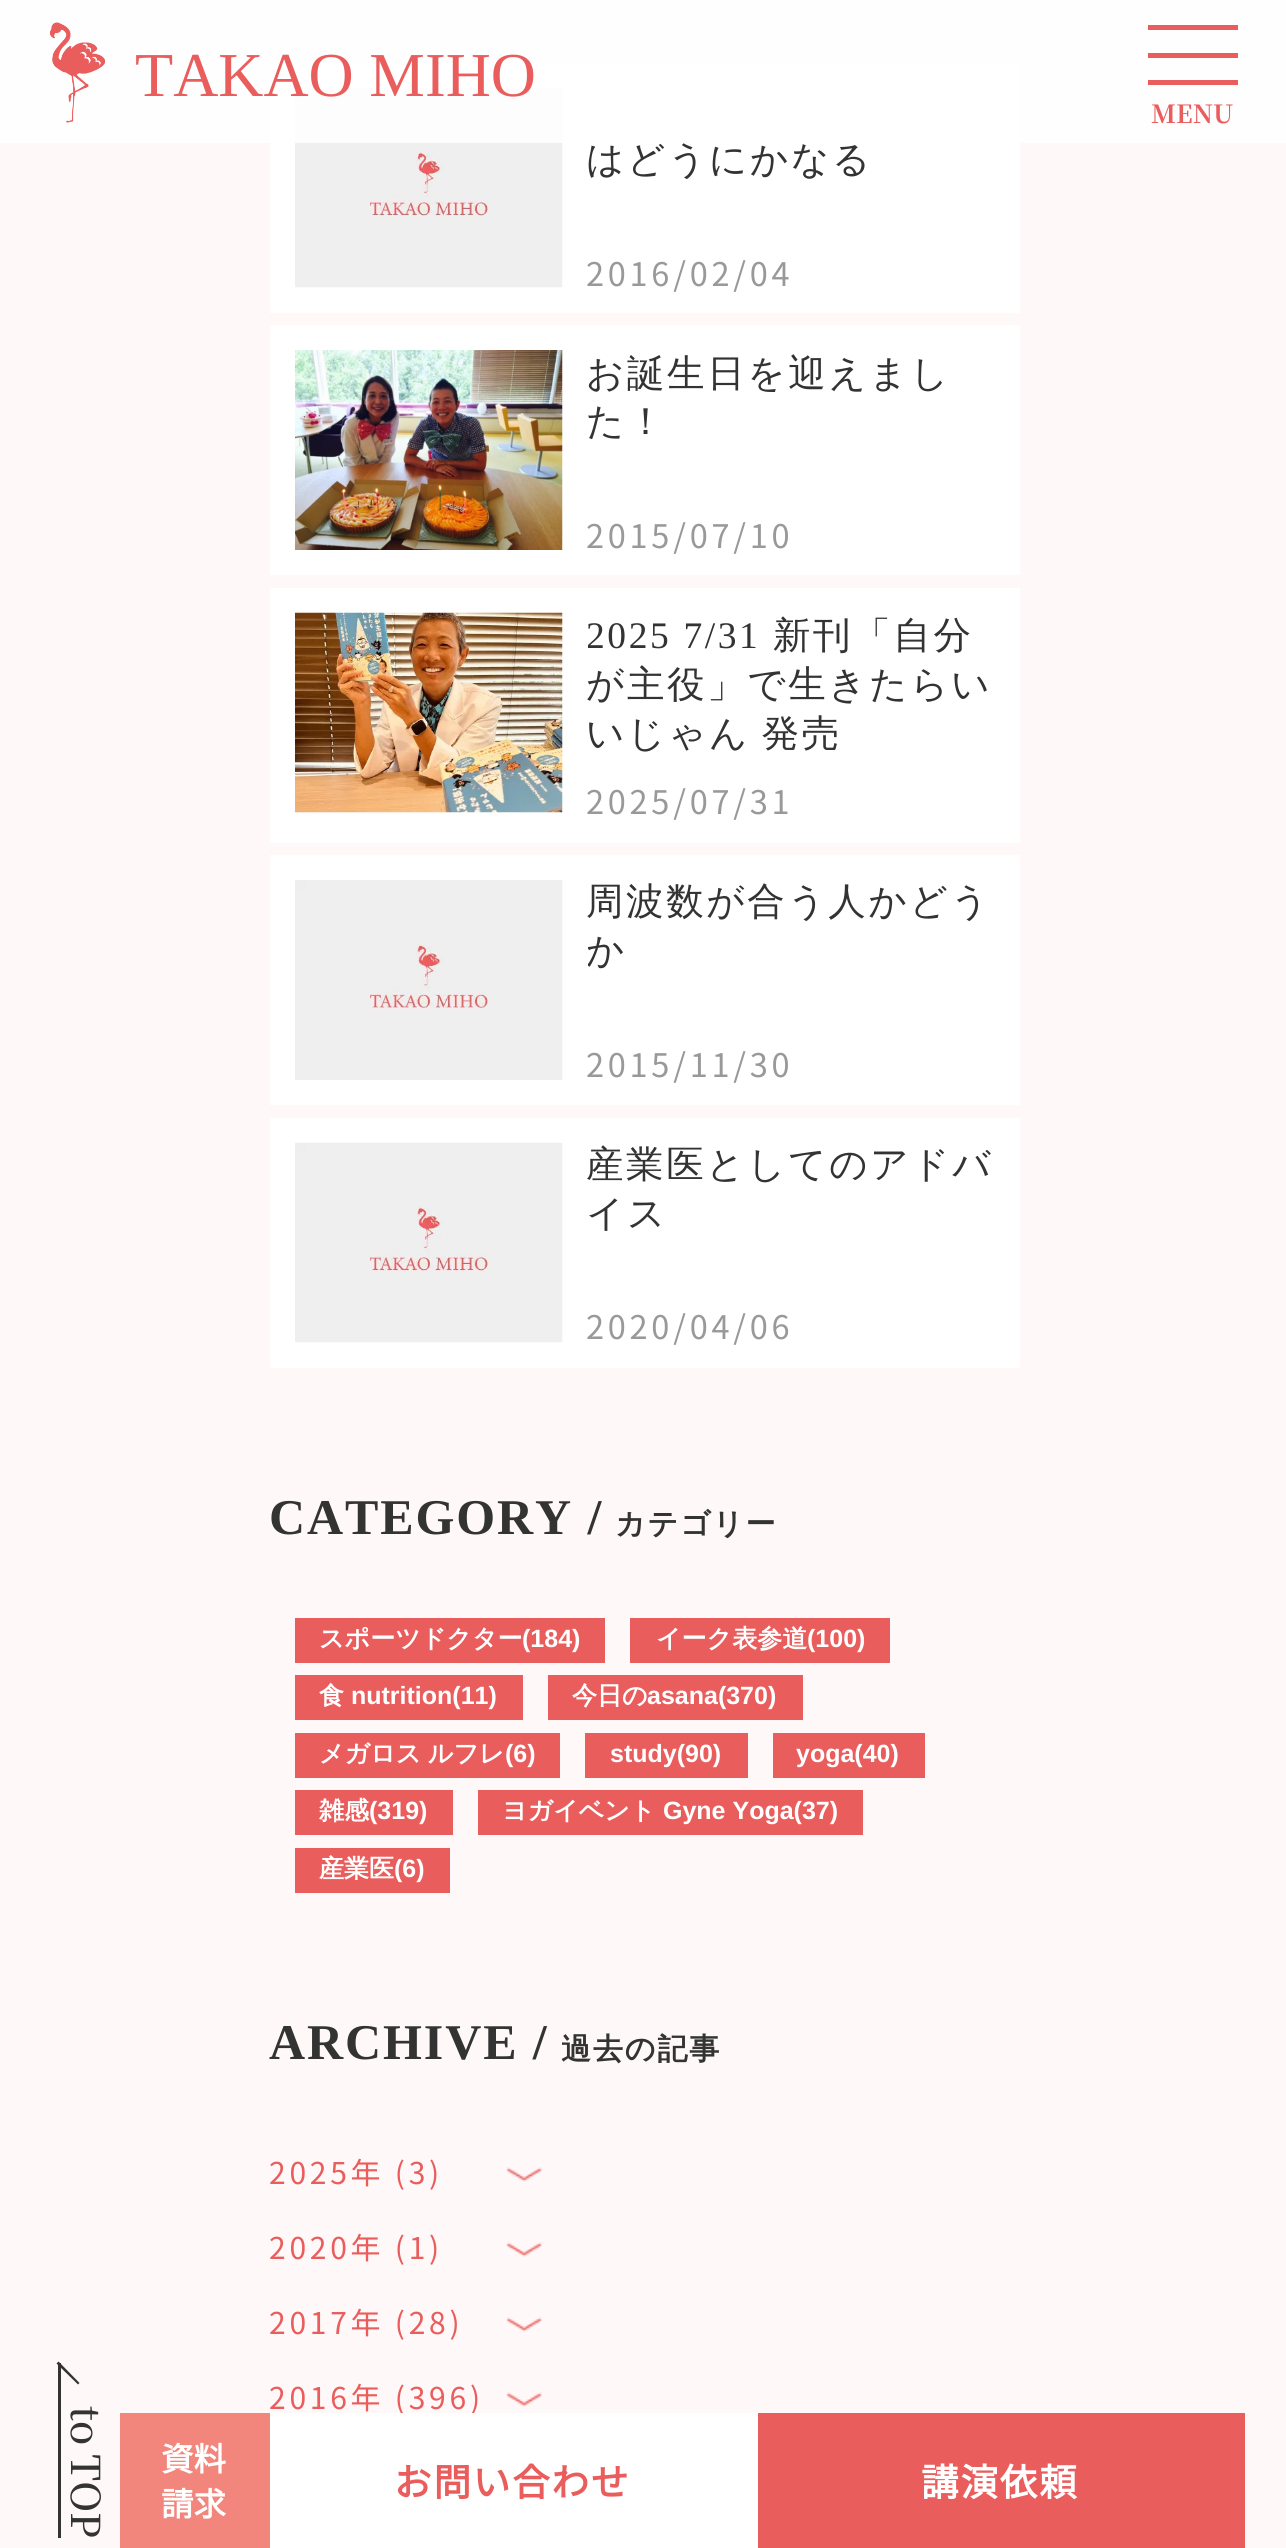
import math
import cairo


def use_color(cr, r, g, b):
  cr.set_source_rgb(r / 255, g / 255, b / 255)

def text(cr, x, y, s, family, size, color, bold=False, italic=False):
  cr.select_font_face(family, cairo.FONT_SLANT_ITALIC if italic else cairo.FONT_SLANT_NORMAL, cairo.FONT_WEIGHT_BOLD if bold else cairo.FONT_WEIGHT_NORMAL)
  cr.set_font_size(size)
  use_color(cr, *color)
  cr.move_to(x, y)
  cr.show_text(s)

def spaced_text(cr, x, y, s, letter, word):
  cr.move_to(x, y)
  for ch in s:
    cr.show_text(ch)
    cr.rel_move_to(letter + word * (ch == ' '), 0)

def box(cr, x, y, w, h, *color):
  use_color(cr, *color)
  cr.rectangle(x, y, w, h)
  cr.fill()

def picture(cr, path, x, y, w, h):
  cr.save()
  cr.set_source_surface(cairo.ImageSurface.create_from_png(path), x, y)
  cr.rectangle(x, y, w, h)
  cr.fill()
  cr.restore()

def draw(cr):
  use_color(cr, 255, 248, 248)
  cr.paint()
  box(cr, 270, 63, 750, 250, 255, 255, 255)
  picture(cr, "img_02.png", 295, 87, 268, 201)
  cr.set_source_rgba(1, 1, 1, 0.85)
  cr.rectangle(0, 0, 1286, 143)
  cr.fill()
  picture(cr, "img_01.png", 50, 22, 55, 101)
  box(cr, 1148, 25, 90, 5, 234, 93, 93)
  box(cr, 1148, 53, 90, 5, 234, 93, 93)
  box(cr, 1148, 80, 90, 5, 234, 93, 93)
  box(cr, 270, 325, 750, 250, 255, 255, 255)
  picture(cr, "img_03.png", 295, 350, 268, 200)
  box(cr, 270, 588, 750, 255, 255, 255, 255)
  picture(cr, "img_04.png", 295, 612, 268, 201)
  box(cr, 270, 855, 750, 250, 255, 255, 255)
  picture(cr, "img_05.png", 295, 880, 268, 200)
  box(cr, 270, 1118, 750, 250, 255, 255, 255)
  picture(cr, "img_02.png", 295, 1142, 268, 201)
  box(cr, 295, 1618, 310, 45, 234, 93, 93)
  box(cr, 630, 1618, 260, 45, 234, 93, 93)
  box(cr, 295, 1675, 228, 45, 234, 93, 93)
  box(cr, 548, 1675, 255, 45, 234, 93, 93)
  box(cr, 295, 1733, 265, 45, 234, 93, 93)
  box(cr, 585, 1733, 163, 45, 234, 93, 93)
  box(cr, 773, 1733, 152, 45, 234, 93, 93)
  box(cr, 295, 1790, 158, 45, 234, 93, 93)
  box(cr, 478, 1790, 385, 45, 234, 93, 93)
  box(cr, 295, 1848, 155, 45, 234, 93, 93)
  picture(cr, "img_06.png", 506, 2167, 36, 15)
  picture(cr, "img_06.png", 506, 2242, 36, 15)
  picture(cr, "img_06.png", 506, 2317, 36, 15)
  picture(cr, "img_06.png", 506, 2392, 36, 15)
  use_color(cr, 51, 51, 51)
  cr.new_path()
  cr.move_to(56.5, 2363.5)
  cr.line_to(58.5, 2361.5)
  cr.line_to(79.5, 2383)
  cr.line_to(78, 2384.5)
  cr.close_path()
  cr.fill()
  box(cr, 58, 2363, 3, 175, 51, 51, 51)
  box(cr, 758, 2413, 487, 135, 234, 93, 93)
  text(cr, 135, 96, "TAKAO MIHO", "Liberation Serif", 62.5, (234, 93, 93))
  text(cr, 1151, 123, "MENU", "Noto Serif JP", 25, (234, 93, 93), bold=True)
  cr.select_font_face("WenQuanYi Zen Hei Medium")
  cr.set_font_size(37.5)
  use_color(cr, 51, 51, 51)
  spaced_text(cr, 586, 172, "はどうにかなる", 2.6, 0)
  cr.select_font_face("Noto Sans JP Thin")
  cr.set_font_size(32.5)
  use_color(cr, 153, 153, 153)
  spaced_text(cr, 586, 286, "2016/02/04", 3.75, 0)
  cr.select_font_face("WenQuanYi Zen Hei Medium")
  cr.set_font_size(37.5)
  use_color(cr, 51, 51, 51)
  spaced_text(cr, 586, 386, "お誕生日を迎えまし", 2.6, 0)
  spaced_text(cr, 586, 434, "た！", 2.6, 0)
  cr.select_font_face("Noto Sans JP Thin")
  cr.set_font_size(32.5)
  use_color(cr, 153, 153, 153)
  spaced_text(cr, 586, 548, "2015/07/10", 3.75, 0)
  cr.save()
  cr.rectangle(588, 613, 407, 147)
  cr.clip()
  cr.select_font_face("Liberation Serif")
  cr.set_font_size(37.5)
  use_color(cr, 51, 51, 51)
  spaced_text(cr, 586, 648, "2025 7/31", 2.6, 0)
  cr.restore()
  cr.select_font_face("WenQuanYi Zen Hei Medium")
  cr.set_font_size(37.5)
  use_color(cr, 51, 51, 51)
  spaced_text(cr, 773, 648, "新刊「自分", 2.6, 0)
  spaced_text(cr, 586, 697, "が主役」で生きたらい", 2.6, 0)
  spaced_text(cr, 586, 746, "いじゃん 発売", 2.6, -2)
  cr.select_font_face("Noto Sans JP Thin")
  cr.set_font_size(32.5)
  use_color(cr, 153, 153, 153)
  spaced_text(cr, 586, 814, "2025/07/31", 3.75, 0)
  cr.select_font_face("WenQuanYi Zen Hei Medium")
  cr.set_font_size(37.5)
  use_color(cr, 51, 51, 51)
  spaced_text(cr, 586, 914, "周波数が合う人かどう", 2.6, 0)
  cr.save()
  cr.rectangle(588, 880, 407, 98)
  cr.clip()
  spaced_text(cr, 586, 963, "か", 2.6, 0)
  cr.restore()
  cr.select_font_face("Noto Sans JP Thin")
  cr.set_font_size(32.5)
  use_color(cr, 153, 153, 153)
  spaced_text(cr, 586, 1077, "2015/11/30", 3.75, 0)
  cr.select_font_face("WenQuanYi Zen Hei Medium")
  cr.set_font_size(37.5)
  use_color(cr, 51, 51, 51)
  spaced_text(cr, 586, 1177, "産業医としてのアドバ", 2.6, 0)
  spaced_text(cr, 586, 1226, "イス", 2.6, 0)
  cr.select_font_face("Noto Sans JP Thin")
  cr.set_font_size(32.5)
  use_color(cr, 153, 153, 153)
  spaced_text(cr, 586, 1339, "2020/04/06", 3.75, 0)
  cr.select_font_face("Liberation Serif", cairo.FONT_SLANT_NORMAL, cairo.FONT_WEIGHT_BOLD)
  cr.set_font_size(50)
  use_color(cr, 51, 51, 51)
  spaced_text(cr, 269, 1534, "CATEGORY /", 1.9, 0)
  cr.select_font_face("WenQuanYi Zen Hei", cairo.FONT_SLANT_NORMAL, cairo.FONT_WEIGHT_BOLD)
  cr.set_font_size(30)
  spaced_text(cr, 615, 1534, "カテゴリー", 1.9, 0)
  text(cr, 319, 1647, "スポーツドクター", "WenQuanYi Zen Hei", 25, (255, 255, 255), bold=True)
  text(cr, 522, 1647, "(184)", "Liberation Sans", 25, (255, 255, 255), bold=True)
  text(cr, 656, 1647, "イーク表参道", "WenQuanYi Zen Hei", 25, (255, 255, 255), bold=True)
  text(cr, 807, 1647, "(100)", "Liberation Sans", 25, (255, 255, 255), bold=True)
  text(cr, 319, 1704, "食", "WenQuanYi Zen Hei", 25, (255, 255, 255), bold=True)
  text(cr, 351, 1704, "nutrition(11)", "Liberation Sans", 25, (255, 255, 255), bold=True)
  text(cr, 572, 1704, "今日の", "WenQuanYi Zen Hei", 25, (255, 255, 255), bold=True)
  text(cr, 647, 1704, "asana(370)", "Liberation Sans", 25, (255, 255, 255), bold=True)
  cr.select_font_face("WenQuanYi Zen Hei", cairo.FONT_SLANT_NORMAL, cairo.FONT_WEIGHT_BOLD)
  spaced_text(cr, 319, 1762, "メガロス ルフレ", 0, -1)
  text(cr, 505, 1762, "(6)", "Liberation Sans", 25, (255, 255, 255), bold=True)
  text(cr, 610, 1762, "study(90)", "Liberation Sans", 25, (255, 255, 255), bold=True)
  text(cr, 796, 1762, "yoga(40)", "Liberation Sans", 25, (255, 255, 255), bold=True)
  text(cr, 319, 1819, "雑感", "WenQuanYi Zen Hei", 25, (255, 255, 255), bold=True)
  text(cr, 369, 1819, "(319)", "Liberation Sans", 25, (255, 255, 255), bold=True)
  text(cr, 502, 1819, "ヨガイベント", "WenQuanYi Zen Hei", 25, (255, 255, 255), bold=True)
  text(cr, 663, 1819, "Gyne Yoga(37)", "Liberation Sans", 25, (255, 255, 255), bold=True)
  text(cr, 319, 1877, "産業医", "WenQuanYi Zen Hei", 25, (255, 255, 255), bold=True)
  text(cr, 394, 1877, "(6)", "Liberation Sans", 25, (255, 255, 255), bold=True)
  cr.select_font_face("Liberation Serif", cairo.FONT_SLANT_NORMAL, cairo.FONT_WEIGHT_BOLD)
  cr.set_font_size(50)
  use_color(cr, 51, 51, 51)
  spaced_text(cr, 269, 2059, "ARCHIVE /", 1.9, 0)
  cr.select_font_face("WenQuanYi Zen Hei", cairo.FONT_SLANT_NORMAL, cairo.FONT_WEIGHT_BOLD)
  cr.set_font_size(30)
  spaced_text(cr, 561, 2059, "過去の記事", 1.9, 0)
  cr.select_font_face("Noto Sans JP Thin")
  use_color(cr, 234, 93, 93)
  spaced_text(cr, 269, 2184, "2025年 (3)", 3.75, 0)
  spaced_text(cr, 269, 2259, "2020年 (1)", 3.75, 0)
  spaced_text(cr, 269, 2334, "2017年 (28)", 3.75, 0)
  spaced_text(cr, 269, 2409, "2016年 (396)", 3.75, 0)
  cr.select_font_face("Noto Serif JP Medium")
  cr.set_font_size(40)
  use_color(cr, 51, 51, 51)
  cr.save()
  cr.translate(71, 2406)
  cr.rotate(90 * math.pi / 180)
  spaced_text(cr, 0, 0, "to TOP", 0, -1)
  cr.restore()
  box(cr, 120, 2413, 150, 135, 242, 133, 124)
  text(cr, 161, 2471, "資料", "Noto Sans JP", 32.5, (255, 255, 255), bold=True)
  text(cr, 161, 2516, "請求", "Noto Sans JP", 32.5, (255, 255, 255), bold=True)
  box(cr, 270, 2413, 488, 135, 255, 255, 255)
  cr.set_font_size(37.5)
  use_color(cr, 234, 93, 93)
  spaced_text(cr, 394, 2496, "お問い合わせ", 1.9, 0)
  use_color(cr, 255, 255, 255)
  spaced_text(cr, 921, 2496, "講演依頼", 1.9, 0)


surface = cairo.ImageSurface(cairo.FORMAT_RGB24, 1286, 2548)
cr = cairo.Context(surface)
options = cairo.FontOptions()
options.set_hint_metrics(cairo.HINT_METRICS_OFF)
options.set_hint_style(cairo.HINT_STYLE_NONE)
cr.set_font_options(options)
cr.set_miter_limit(4)
draw(cr)
surface.write_to_png("out.png")
